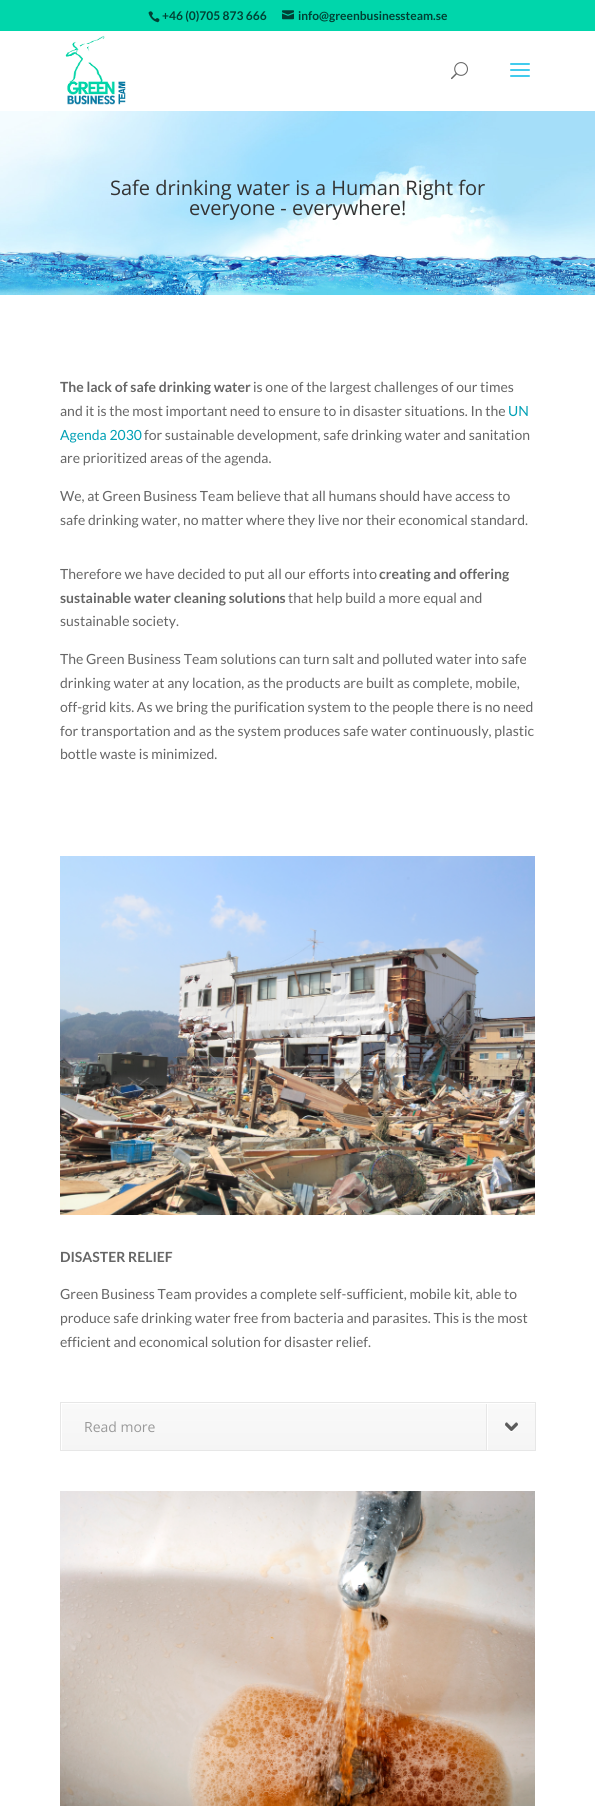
import math
import cairo


def use_color(cr, r, g, b):
  cr.set_source_rgb(r / 255, g / 255, b / 255)

def text(cr, x, y, s, family, size, color, bold=False, italic=False):
  cr.select_font_face(family, cairo.FONT_SLANT_ITALIC if italic else cairo.FONT_SLANT_NORMAL, cairo.FONT_WEIGHT_BOLD if bold else cairo.FONT_WEIGHT_NORMAL)
  cr.set_font_size(size)
  use_color(cr, *color)
  cr.move_to(x, y)
  cr.show_text(s)

def box(cr, x, y, w, h, *color):
  use_color(cr, *color)
  cr.rectangle(x, y, w, h)
  cr.fill()

def picture(cr, path, x, y, w, h):
  cr.save()
  cr.set_source_surface(cairo.ImageSurface.create_from_png(path), x, y)
  cr.rectangle(x, y, w, h)
  cr.fill()
  cr.restore()

def draw(cr):
  use_color(cr, 255, 255, 255)
  cr.paint()
  box(cr, 0, 0, 595, 31, 0, 214, 171)
  picture(cr, "img_01.png", 148, 11, 12, 12)
  picture(cr, "img_02.png", 282, 10, 12, 10)
  picture(cr, "img_03.png", 65, 35, 61, 70)
  picture(cr, "img_04.png", 451, 62, 17, 18)
  picture(cr, "img_05.png", 510, 63, 20, 14)
  picture(cr, "img_06.png", 0, 111, 595, 184)
  picture(cr, "img_07.png", 60, 856, 475, 359)
  cr.rectangle(60.5, 1402.5, 475, 48)
  use_color(cr, 231, 231, 231)
  cr.set_line_width(1)
  cr.stroke()
  gradient = cairo.LinearGradient(299, 1404, 299, 1450)
  gradient.add_color_stop_rgba(0, 0.976, 0.976, 0.976, 1)
  gradient.add_color_stop_rgba(1, 0.961, 0.961, 0.961, 1)
  cr.set_source(gradient)
  cr.rectangle(62, 1404, 473, 46)
  cr.fill()
  box(cr, 486, 1404, 1, 46, 231, 231, 231)
  box(cr, 487, 1404, 1, 46, 255, 255, 255)
  picture(cr, "img_08.png", 505, 1422, 13, 10)
  picture(cr, "img_09.png", 60, 1491, 475, 315)
  text(cr, 162, 20, "+46 (0)705 873 666", "Lato", 12, (0, 64, 51), bold=True)
  text(cr, 298, 20, "info@greenbusinessteam.se", "Lato", 12, (0, 64, 51), bold=True)
  text(cr, 110, 195, "Safe drinking water is a Human Right for", "Open Sans", 20, (51, 51, 51))
  text(cr, 189, 215, "everyone - everywhere!", "Open Sans", 20, (51, 51, 51))
  text(cr, 60, 392, "The lack of safe drinking water", "Lato", 14, (102, 102, 102), bold=True)
  text(cr, 253, 392, "is one of the largest challenges of our times", "Lato", 14, (102, 102, 102))
  text(cr, 60, 416, "and it is the most important need to ensure to in disaster situations. In the", "Lato", 14, (102, 102, 102))
  text(cr, 508, 416, "UN", "Lato", 14, (0, 160, 181))
  text(cr, 60, 440, "Agenda 2030", "Lato", 14, (0, 160, 181))
  text(cr, 144, 440, "for sustainable development, safe drinking water and sanitation", "Lato", 14, (102, 102, 102))
  text(cr, 60, 463, "are prioritized areas of the agenda.", "Lato", 14, (102, 102, 102))
  text(cr, 60, 501, "We, at Green Business Team believe that all humans should have access to", "Lato", 14, (102, 102, 102))
  text(cr, 60, 525, "safe drinking water, no matter where they live nor their economical standard.", "Lato", 14, (102, 102, 102))
  text(cr, 60, 579, "Therefore we have decided to put all our efforts into", "Lato", 14, (102, 102, 102))
  text(cr, 379, 579, "creating and offering", "Lato", 14, (102, 102, 102), bold=True)
  text(cr, 60, 603, "sustainable water cleaning solutions", "Lato", 14, (102, 102, 102), bold=True)
  text(cr, 288, 603, "that help build a more equal and", "Lato", 14, (102, 102, 102))
  text(cr, 60, 626, "sustainable society.", "Lato", 14, (102, 102, 102))
  text(cr, 60, 664, "The Green Business Team solutions can turn salt and polluted water into safe", "Lato", 14, (102, 102, 102))
  text(cr, 60, 688, "drinking water at any location, as the products are built as complete, mobile,", "Lato", 14, (102, 102, 102))
  text(cr, 60, 712, "off-grid kits. As we bring the purification system to the people there is no need", "Lato", 14, (102, 102, 102))
  text(cr, 60, 736, "for transportation and as the system produces safe water continuously, plastic", "Lato", 14, (102, 102, 102))
  text(cr, 60, 759, "bottle waste is minimized.", "Lato", 14, (102, 102, 102))
  text(cr, 60, 1262, "DISASTER RELIEF", "Lato", 14, (102, 102, 102), bold=True)
  text(cr, 60, 1299, "Green Business Team provides a complete self-sufficient, mobile kit, able to", "Lato", 14, (102, 102, 102))
  text(cr, 60, 1323, "produce safe drinking water free from bacteria and parasites. This is the most", "Lato", 14, (102, 102, 102))
  text(cr, 60, 1347, "efficient and economical solution for disaster relief.", "Lato", 14, (102, 102, 102))
  text(cr, 84, 1432, "Read more", "Open Sans", 14, (153, 153, 153))


surface = cairo.ImageSurface(cairo.FORMAT_RGB24, 595, 1806)
cr = cairo.Context(surface)
options = cairo.FontOptions()
options.set_hint_metrics(cairo.HINT_METRICS_OFF)
options.set_hint_style(cairo.HINT_STYLE_NONE)
cr.set_font_options(options)
cr.set_miter_limit(4)
draw(cr)
surface.write_to_png("out.png")
